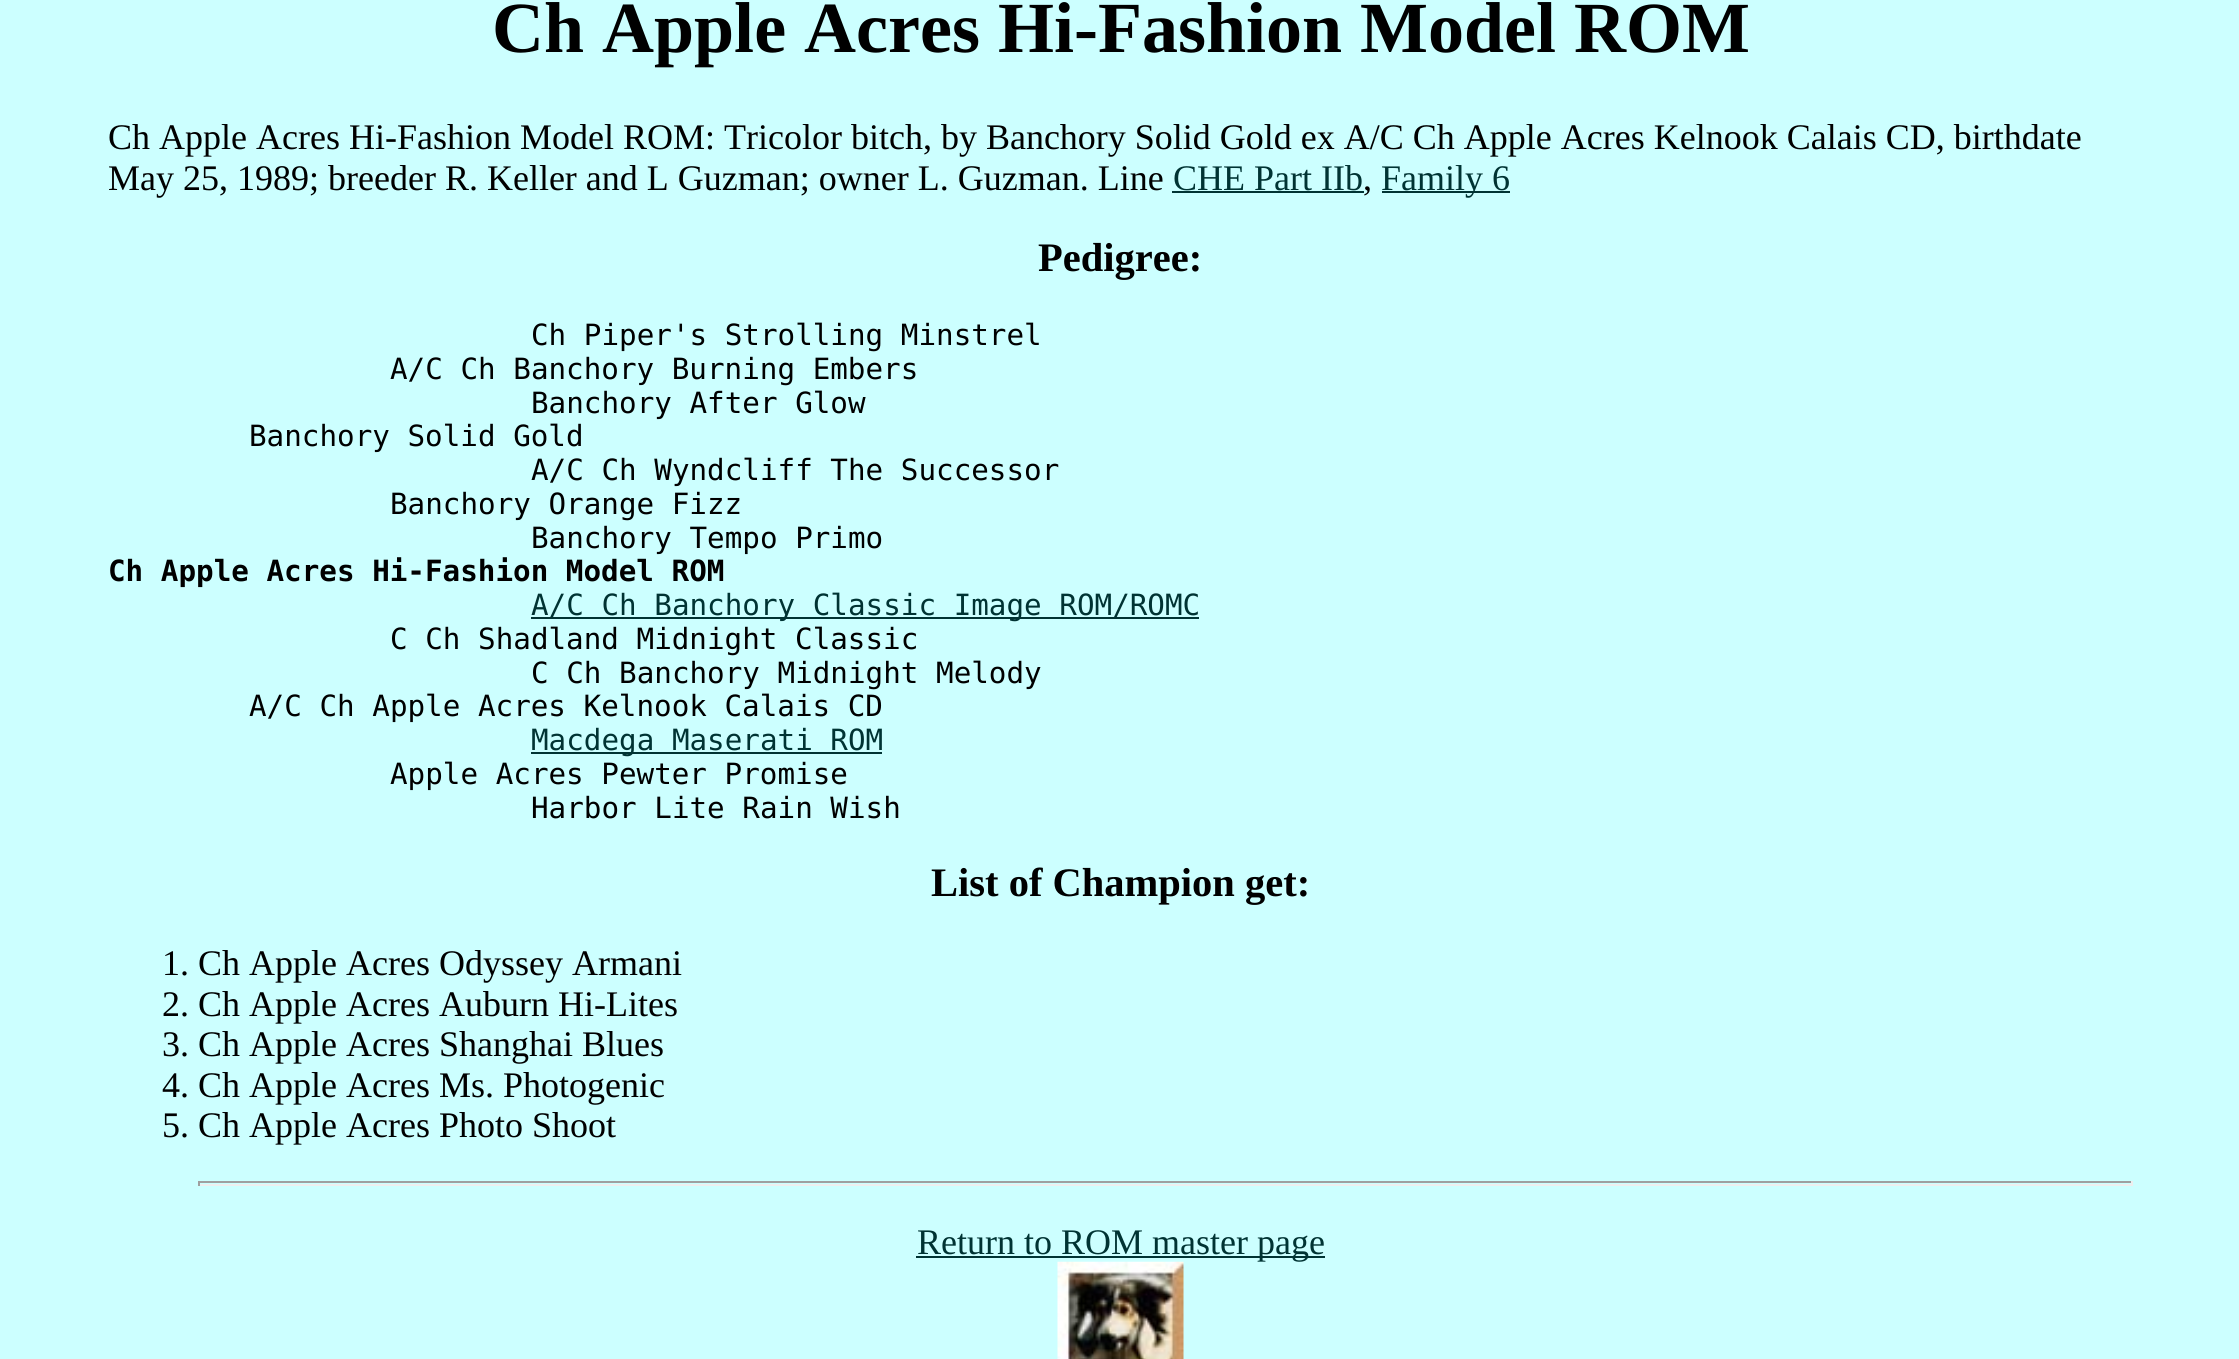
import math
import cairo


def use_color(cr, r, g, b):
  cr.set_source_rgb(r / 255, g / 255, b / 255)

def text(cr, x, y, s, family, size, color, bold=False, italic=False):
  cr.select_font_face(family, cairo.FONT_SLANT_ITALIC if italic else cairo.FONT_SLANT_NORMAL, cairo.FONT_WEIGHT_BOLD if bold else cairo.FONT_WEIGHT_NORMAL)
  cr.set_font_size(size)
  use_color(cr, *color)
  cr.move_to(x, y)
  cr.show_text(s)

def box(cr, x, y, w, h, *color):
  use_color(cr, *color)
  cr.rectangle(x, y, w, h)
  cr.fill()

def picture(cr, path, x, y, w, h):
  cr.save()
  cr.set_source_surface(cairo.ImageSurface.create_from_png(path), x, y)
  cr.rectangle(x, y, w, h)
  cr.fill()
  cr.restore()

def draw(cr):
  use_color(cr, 204, 255, 255)
  cr.paint()
  box(cr, 1172, 191, 192, 2, 0, 51, 51)
  box(cr, 1382, 191, 128, 2, 0, 51, 51)
  box(cr, 531, 617, 668, 2, 0, 51, 51)
  box(cr, 531, 752, 351, 2, 0, 51, 51)
  box(cr, 198, 1181, 1935, 2, 159, 159, 159)
  box(cr, 2131, 1181, 2, 5, 238, 238, 238)
  box(cr, 198, 1184, 1935, 2, 238, 238, 238)
  box(cr, 198, 1181, 2, 5, 159, 159, 159)
  box(cr, 916, 1256, 409, 2, 0, 51, 51)
  text(cr, 492, 52, "Ch Apple Acres Hi-Fashion Model ROM", "Liberation Serif", 72, (0, 0, 0), bold=True)
  text(cr, 108, 149, "Ch Apple Acres Hi-Fashion Model ROM: Tricolor bitch, by Banchory Solid Gold ex A/C Ch Apple Acres Kelnook Calais CD, birthdate", "Liberation Serif", 36, (0, 0, 0))
  text(cr, 108, 190, "May 25, 1989; breeder R. Keller and L Guzman; owner L. Guzman. Line", "Liberation Serif", 36, (0, 0, 0))
  text(cr, 1173, 190, "CHE Part IIb", "Liberation Serif", 36, (0, 51, 51))
  text(cr, 1363, 190, ",", "Liberation Serif", 36, (0, 0, 0))
  text(cr, 1381, 190, "Family 6", "Liberation Serif", 36, (0, 51, 51))
  text(cr, 1038, 271, "Pedigree:", "Liberation Serif", 40.5, (0, 0, 0), bold=True)
  text(cr, 531, 345, "Ch Piper's Strolling Minstrel", "DejaVu Sans Mono", 29.25, (0, 0, 0))
  text(cr, 390, 379, "A/C Ch Banchory Burning Embers", "DejaVu Sans Mono", 29.25, (0, 0, 0))
  text(cr, 531, 413, "Banchory After Glow", "DejaVu Sans Mono", 29.25, (0, 0, 0))
  text(cr, 249, 446, "Banchory Solid Gold", "DejaVu Sans Mono", 29.25, (0, 0, 0))
  text(cr, 531, 480, "A/C Ch Wyndcliff The Successor", "DejaVu Sans Mono", 29.25, (0, 0, 0))
  text(cr, 390, 514, "Banchory Orange Fizz", "DejaVu Sans Mono", 29.25, (0, 0, 0))
  text(cr, 531, 548, "Banchory Tempo Primo", "DejaVu Sans Mono", 29.25, (0, 0, 0))
  text(cr, 108, 581, "Ch Apple Acres Hi-Fashion Model ROM", "DejaVu Sans Mono", 29.25, (0, 0, 0), bold=True)
  text(cr, 531, 615, "A/C Ch Banchory Classic Image ROM/ROMC", "DejaVu Sans Mono", 29.25, (0, 51, 51))
  text(cr, 390, 649, "C Ch Shadland Midnight Classic", "DejaVu Sans Mono", 29.25, (0, 0, 0))
  text(cr, 531, 683, "C Ch Banchory Midnight Melody", "DejaVu Sans Mono", 29.25, (0, 0, 0))
  text(cr, 249, 716, "A/C Ch Apple Acres Kelnook Calais CD", "DejaVu Sans Mono", 29.25, (0, 0, 0))
  text(cr, 531, 750, "Macdega Maserati ROM", "DejaVu Sans Mono", 29.25, (0, 51, 51))
  text(cr, 390, 784, "Apple Acres Pewter Promise", "DejaVu Sans Mono", 29.25, (0, 0, 0))
  text(cr, 531, 818, "Harbor Lite Rain Wish", "DejaVu Sans Mono", 29.25, (0, 0, 0))
  text(cr, 931, 896, "List of Champion get:", "Liberation Serif", 40.5, (0, 0, 0), bold=True)
  text(cr, 162, 975, "1. Ch Apple Acres Odyssey Armani", "Liberation Serif", 36, (0, 0, 0))
  text(cr, 162, 1016, "2. Ch Apple Acres Auburn Hi-Lites", "Liberation Serif", 36, (0, 0, 0))
  text(cr, 162, 1056, "3. Ch Apple Acres Shanghai Blues", "Liberation Serif", 36, (0, 0, 0))
  text(cr, 162, 1097, "4. Ch Apple Acres Ms. Photogenic", "Liberation Serif", 36, (0, 0, 0))
  text(cr, 162, 1137, "5. Ch Apple Acres Photo Shoot", "Liberation Serif", 36, (0, 0, 0))
  text(cr, 917, 1254, "Return to ROM master page", "Liberation Serif", 36, (0, 51, 51))
  picture(cr, "img_01.png", 1057, 1261, 127, 98)


surface = cairo.ImageSurface(cairo.FORMAT_RGB24, 2239, 1359)
cr = cairo.Context(surface)
options = cairo.FontOptions()
options.set_hint_metrics(cairo.HINT_METRICS_OFF)
options.set_hint_style(cairo.HINT_STYLE_NONE)
cr.set_font_options(options)
cr.set_miter_limit(4)
draw(cr)
surface.write_to_png("out.png")
